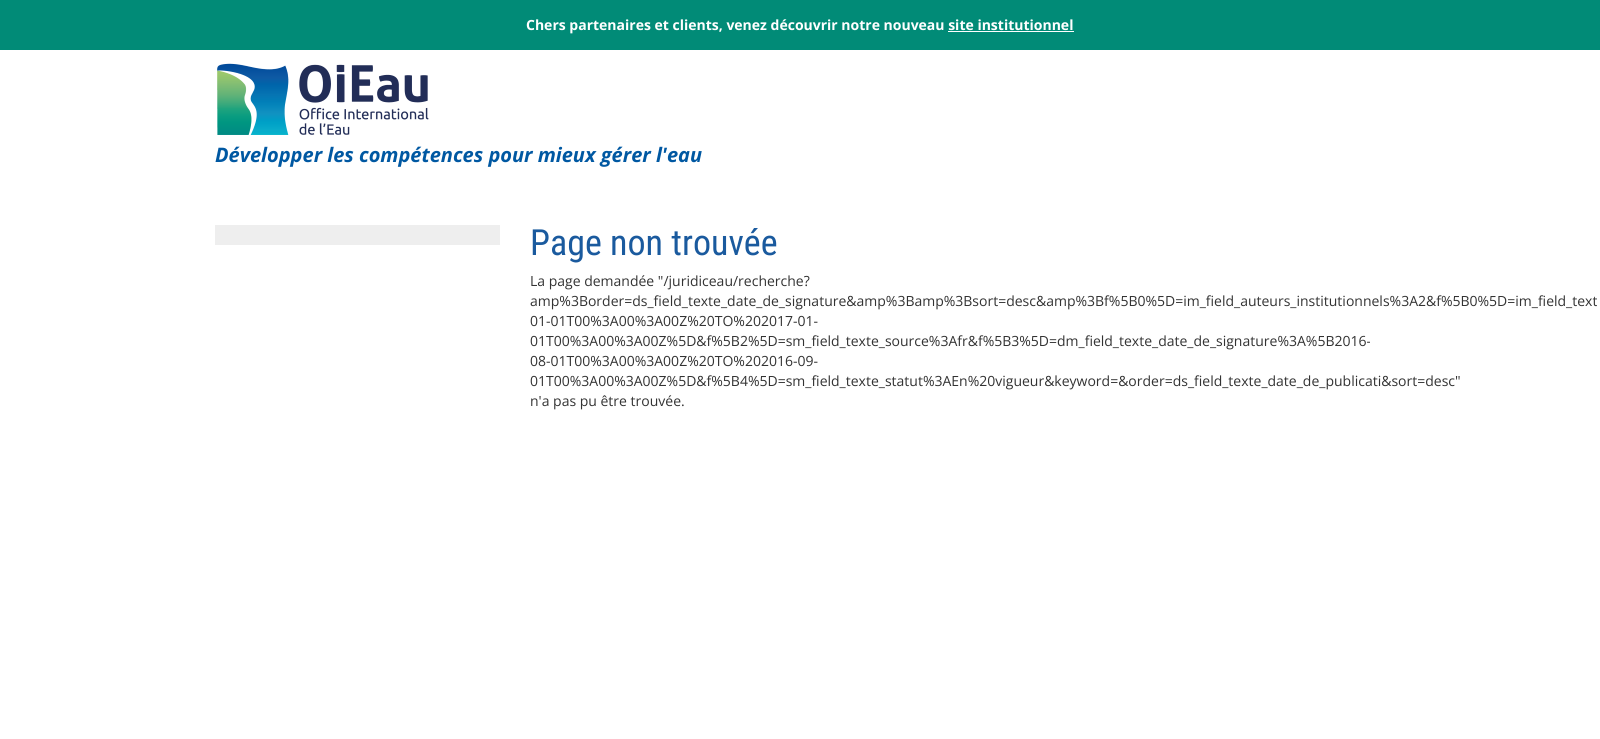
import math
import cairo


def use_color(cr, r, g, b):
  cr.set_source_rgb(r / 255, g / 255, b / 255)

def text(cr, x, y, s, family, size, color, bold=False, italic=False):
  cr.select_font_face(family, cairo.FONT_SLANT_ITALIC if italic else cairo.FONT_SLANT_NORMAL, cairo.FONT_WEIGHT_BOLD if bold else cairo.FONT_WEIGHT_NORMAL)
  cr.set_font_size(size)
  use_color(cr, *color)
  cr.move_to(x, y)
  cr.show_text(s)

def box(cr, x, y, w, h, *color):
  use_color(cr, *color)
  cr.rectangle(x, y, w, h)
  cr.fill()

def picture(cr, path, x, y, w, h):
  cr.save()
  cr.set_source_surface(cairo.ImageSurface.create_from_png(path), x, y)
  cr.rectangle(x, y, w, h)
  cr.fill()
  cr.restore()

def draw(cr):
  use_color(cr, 255, 255, 255)
  cr.paint()
  box(cr, 0, 0, 1600, 50, 1, 139, 119)
  box(cr, 948, 31, 126, 1, 255, 255, 255)
  picture(cr, "img_01.png", 217, 63, 212, 72)
  box(cr, 215, 225, 285, 20, 238, 238, 238)
  text(cr, 526, 30, "Chers partenaires et clients, venez découvrir notre nouveau site institutionnel", "Open Sans", 14, (255, 255, 255), bold=True)
  text(cr, 215, 162, "Développer les compétences pour mieux gérer l'eau", "Open Sans", 20, (0, 88, 162), bold=True, italic=True)
  text(cr, 530, 255, "Page non trouvée", "Roboto Condensed", 36, (26, 90, 158))
  text(cr, 530, 286, "La page demandée \"/juridiceau/recherche?", "Open Sans", 14, (51, 51, 51))
  text(cr, 530, 306, "amp%3Border=ds_field_texte_date_de_signature&amp%3Bamp%3Bsort=desc&amp%3Bf%5B0%5D=im_field_auteurs_institutionnels%3A2&f%5B0%5D=im_field_text", "Open Sans", 14, (51, 51, 51))
  text(cr, 530, 326, "01-01T00%3A00%3A00Z%20TO%202017-01-", "Open Sans", 14, (51, 51, 51))
  text(cr, 530, 346, "01T00%3A00%3A00Z%5D&f%5B2%5D=sm_field_texte_source%3Afr&f%5B3%5D=dm_field_texte_date_de_signature%3A%5B2016-", "Open Sans", 14, (51, 51, 51))
  text(cr, 530, 366, "08-01T00%3A00%3A00Z%20TO%202016-09-", "Open Sans", 14, (51, 51, 51))
  text(cr, 530, 386, "01T00%3A00%3A00Z%5D&f%5B4%5D=sm_field_texte_statut%3AEn%20vigueur&keyword=&order=ds_field_texte_date_de_publicati&sort=desc\"", "Open Sans", 14, (51, 51, 51))
  text(cr, 530, 406, "n'a pas pu être trouvée.", "Open Sans", 14, (51, 51, 51))


surface = cairo.ImageSurface(cairo.FORMAT_RGB24, 1600, 739)
cr = cairo.Context(surface)
options = cairo.FontOptions()
options.set_hint_metrics(cairo.HINT_METRICS_OFF)
options.set_hint_style(cairo.HINT_STYLE_NONE)
cr.set_font_options(options)
cr.set_miter_limit(4)
draw(cr)
surface.write_to_png("out.png")
